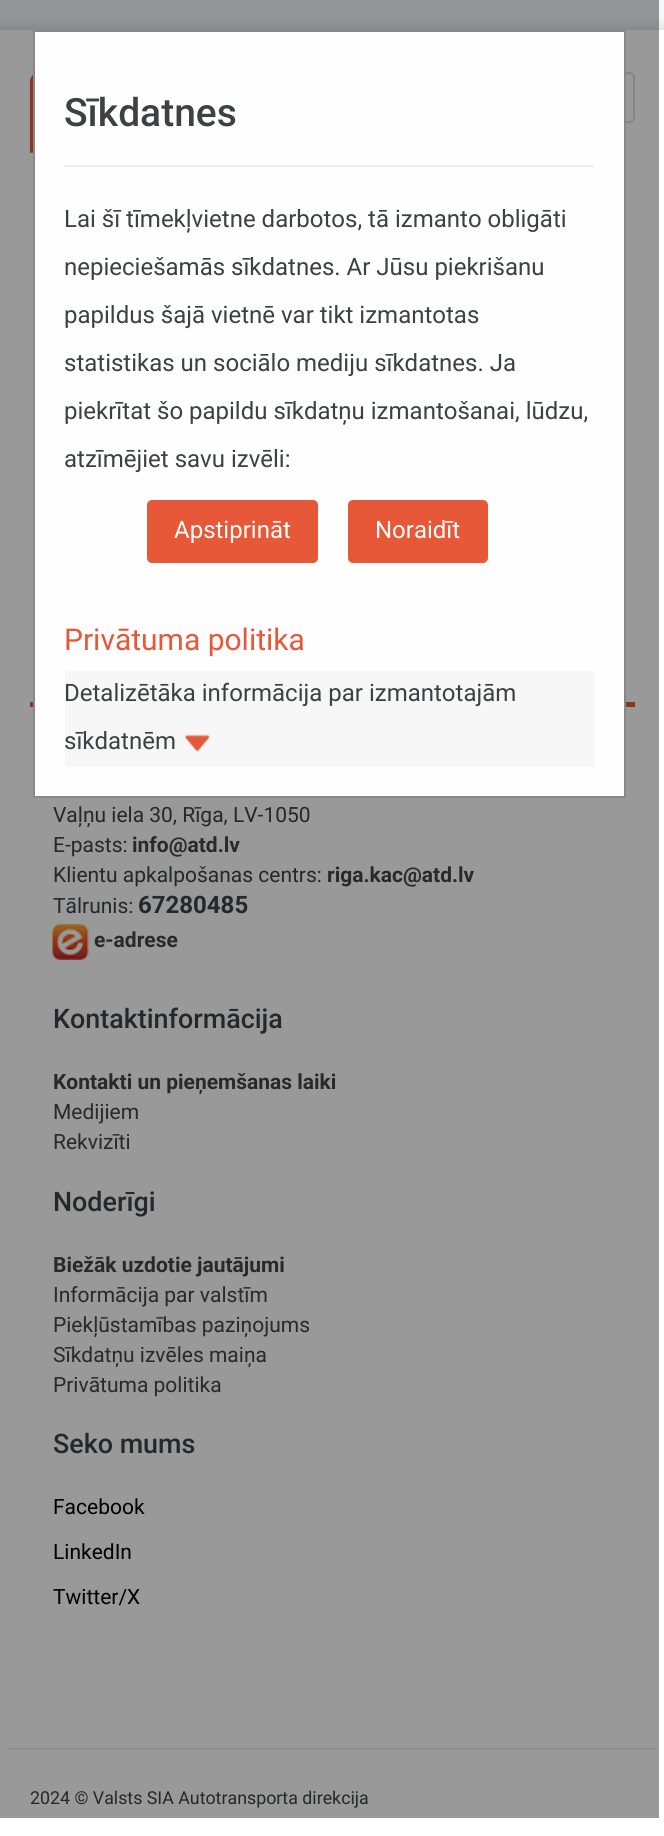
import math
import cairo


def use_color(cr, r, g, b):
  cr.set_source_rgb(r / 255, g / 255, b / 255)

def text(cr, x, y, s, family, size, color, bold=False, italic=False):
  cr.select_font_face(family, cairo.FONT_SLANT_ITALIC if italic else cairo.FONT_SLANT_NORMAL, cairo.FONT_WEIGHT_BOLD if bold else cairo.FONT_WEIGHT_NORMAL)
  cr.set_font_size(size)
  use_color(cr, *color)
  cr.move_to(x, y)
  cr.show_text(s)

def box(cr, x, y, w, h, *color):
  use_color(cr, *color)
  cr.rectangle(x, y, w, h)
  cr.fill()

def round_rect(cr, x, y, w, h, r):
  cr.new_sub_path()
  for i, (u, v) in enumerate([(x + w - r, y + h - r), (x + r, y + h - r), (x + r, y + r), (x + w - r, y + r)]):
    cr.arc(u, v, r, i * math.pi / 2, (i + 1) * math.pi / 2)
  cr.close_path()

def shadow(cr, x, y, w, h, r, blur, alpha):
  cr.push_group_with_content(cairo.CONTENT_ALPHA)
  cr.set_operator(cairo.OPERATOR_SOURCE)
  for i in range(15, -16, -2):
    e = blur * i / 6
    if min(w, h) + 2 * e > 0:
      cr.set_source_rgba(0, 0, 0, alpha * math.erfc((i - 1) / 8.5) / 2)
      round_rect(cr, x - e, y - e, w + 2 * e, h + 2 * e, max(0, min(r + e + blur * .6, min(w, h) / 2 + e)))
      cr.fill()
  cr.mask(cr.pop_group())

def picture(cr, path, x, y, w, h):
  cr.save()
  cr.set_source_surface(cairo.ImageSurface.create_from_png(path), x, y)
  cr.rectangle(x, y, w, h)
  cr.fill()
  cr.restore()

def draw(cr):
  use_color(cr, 245, 247, 249)
  cr.paint()
  use_color(cr, 0, 0, 0)
  shadow(cr, -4, 26, 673, 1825, 0, 5, 0.1)
  box(cr, 0, 30, 664, 1806, 255, 255, 255)
  picture(cr, "img_01.png", 30, 74, 3, 79)
  round_rect(cr, 570, 73, 64, 49, 5)
  use_color(cr, 221, 221, 221)
  cr.stroke()
  box(cr, 8, 1748, 649, 2, 236, 238, 240)
  picture(cr, "img_03.png", 52, 924, 37, 36)
  box(cr, 30, 702, 605, 5, 234, 89, 49)
  text(cr, 53, 822, "Vaļņu iela 30, Rīga, LV-1050", "Roboto", 21, (61, 65, 68))
  text(cr, 53, 852, "E-pasts:", "Roboto", 21, (61, 65, 68))
  text(cr, 132, 852, "info@atd.lv", "Roboto", 21, (68, 68, 68), bold=True)
  text(cr, 53, 882, "Klientu apkalpošanas centrs:", "Roboto", 21, (61, 65, 68))
  text(cr, 327, 882, "riga.kac@atd.lv", "Roboto", 21, (68, 68, 68), bold=True)
  text(cr, 53, 913, "Tālrunis:", "Roboto", 21, (61, 65, 68))
  text(cr, 138, 913, "67280485", "Roboto", 24, (61, 65, 68), bold=True)
  text(cr, 94, 947, "e-adrese", "Roboto", 21, (68, 68, 68), bold=True)
  text(cr, 53, 1028, "Kontaktinformācija", "Roboto Medium", 26.9, (61, 65, 68))
  text(cr, 53, 1089, "Kontakti un pieņemšanas laiki", "Roboto", 21, (68, 68, 68), bold=True)
  text(cr, 53, 1119, "Medijiem", "Roboto", 21, (68, 68, 68))
  text(cr, 53, 1149, "Rekvizīti", "Roboto", 21, (68, 68, 68))
  text(cr, 53, 1211, "Noderīgi", "Roboto Medium", 26.9, (61, 65, 68))
  text(cr, 53, 1272, "Biežāk uzdotie jautājumi", "Roboto", 21, (68, 68, 68), bold=True)
  text(cr, 53, 1302, "Informācija par valstīm", "Roboto", 21, (68, 68, 68))
  text(cr, 53, 1332, "Piekļūstamības paziņojums", "Roboto", 21, (68, 68, 68))
  text(cr, 53, 1362, "Sīkdatņu izvēles maiņa", "Roboto", 21, (68, 68, 68))
  text(cr, 53, 1392, "Privātuma politika", "Roboto", 21, (68, 68, 68))
  text(cr, 53, 1453, "Seko mums", "Roboto Medium", 26.9, (61, 65, 68))
  text(cr, 53, 1514, "Facebook", "Roboto", 21, (0, 0, 0))
  text(cr, 53, 1559, "LinkedIn", "Roboto", 21, (0, 0, 0))
  text(cr, 53, 1604, "Twitter/X", "Roboto", 21, (0, 0, 0))
  text(cr, 30, 1804, "2024 © Valsts SIA Autotransporta direkcija", "Roboto", 17.8, (61, 65, 68))
  cr.set_source_rgba(0, 0, 0, 0.4)
  cr.rectangle(0, 0, 659, 1818)
  cr.fill()
  use_color(cr, 254, 254, 254)
  cr.rectangle(34, 31, 591, 766)
  cr.fill_preserve()
  use_color(cr, 136, 136, 136)
  cr.stroke()
  box(cr, 65, 165, 529, 2, 238, 238, 238)
  box(cr, 65, 671, 529, 96, 247, 247, 247)
  picture(cr, "img_02.png", 184, 734, 26, 18)
  text(cr, 64, 749, "sīkdatnēm", "Roboto", 24, (61, 65, 68))
  text(cr, 64, 701, "Detalizētāka informācija par izmantotajām", "Roboto", 24, (61, 65, 68))
  text(cr, 64, 650, "Privātuma politika", "Roboto", 30, (231, 88, 56))
  round_rect(cr, 348, 500, 140, 63, 5)
  cr.fill()
  text(cr, 375, 538, "Noraidīt", "Roboto", 24, (255, 255, 255))
  use_color(cr, 231, 88, 56)
  round_rect(cr, 147, 500, 171, 63, 5)
  cr.fill()
  text(cr, 174, 538, "Apstiprināt", "Roboto", 24, (255, 255, 255))
  text(cr, 64, 467, "atzīmējiet savu izvēli:", "Roboto", 24, (61, 65, 68))
  text(cr, 64, 419, "piekrītat šo papildu sīkdatņu izmantošanai, lūdzu,", "Roboto", 24, (61, 65, 68))
  text(cr, 64, 371, "statistikas un sociālo mediju sīkdatnes. Ja", "Roboto", 24, (61, 65, 68))
  text(cr, 64, 323, "papildus šajā vietnē var tikt izmantotas", "Roboto", 24, (61, 65, 68))
  text(cr, 64, 275, "nepieciešamās sīkdatnes. Ar Jūsu piekrišanu", "Roboto", 24, (61, 65, 68))
  text(cr, 64, 227, "Lai šī tīmekļvietne darbotos, tā izmanto obligāti", "Roboto", 24, (61, 65, 68))
  text(cr, 64, 126, "Sīkdatnes", "Roboto Medium", 39, (61, 65, 68))


surface = cairo.ImageSurface(cairo.FORMAT_RGB24, 664, 1836)
cr = cairo.Context(surface)
options = cairo.FontOptions()
options.set_hint_metrics(cairo.HINT_METRICS_OFF)
options.set_hint_style(cairo.HINT_STYLE_NONE)
cr.set_font_options(options)
cr.set_miter_limit(4)
draw(cr)
surface.write_to_png("out.png")
